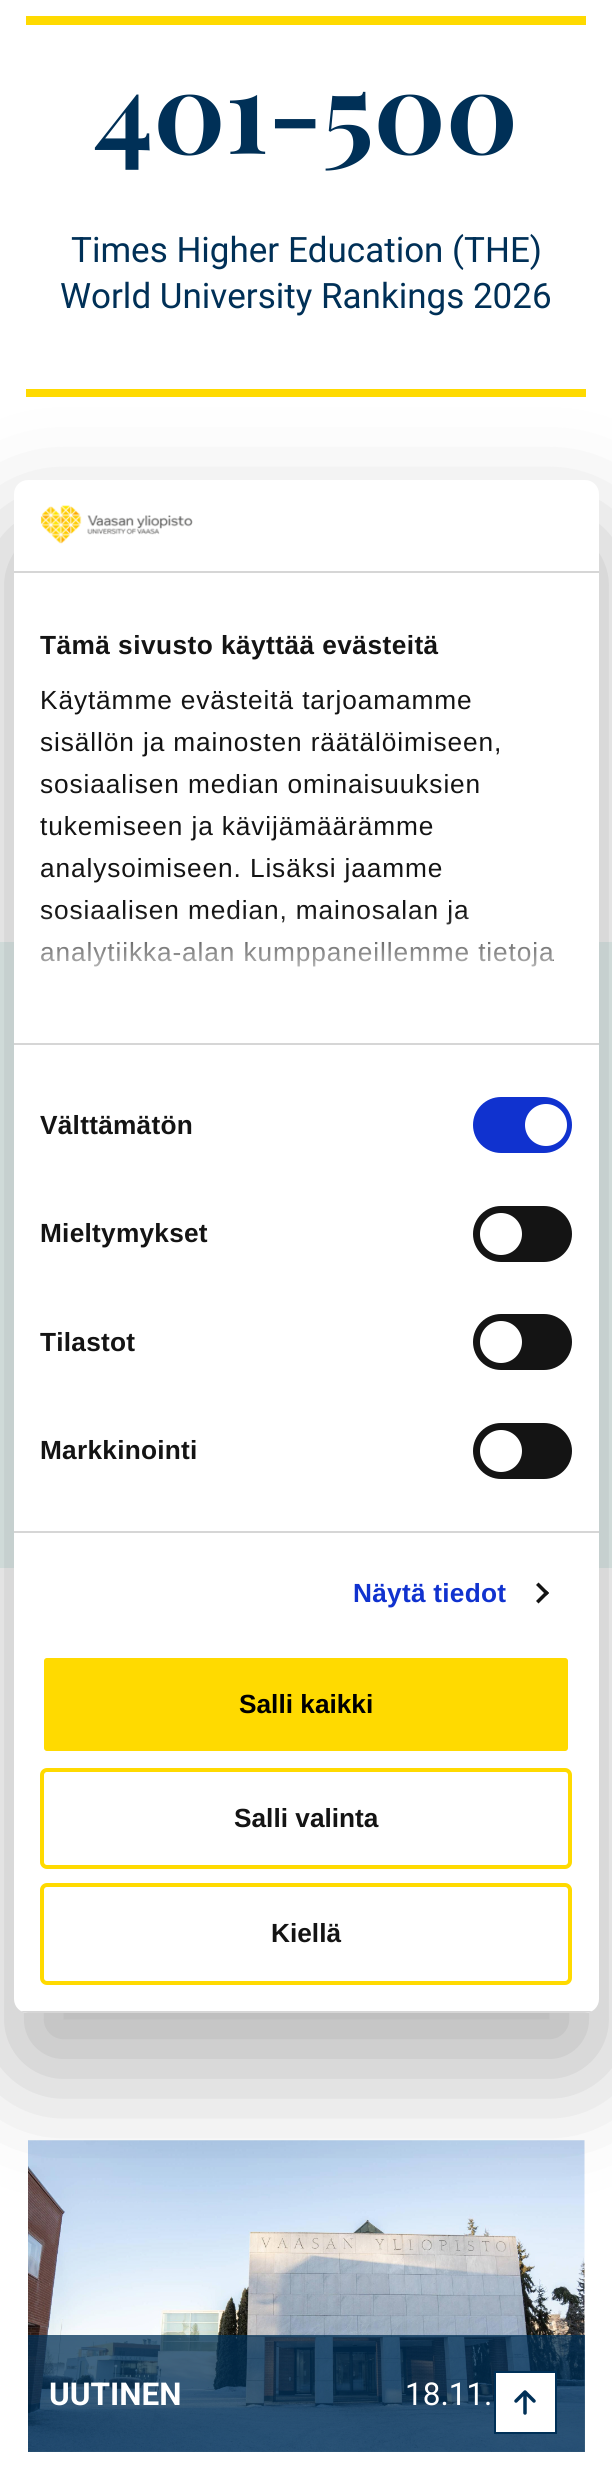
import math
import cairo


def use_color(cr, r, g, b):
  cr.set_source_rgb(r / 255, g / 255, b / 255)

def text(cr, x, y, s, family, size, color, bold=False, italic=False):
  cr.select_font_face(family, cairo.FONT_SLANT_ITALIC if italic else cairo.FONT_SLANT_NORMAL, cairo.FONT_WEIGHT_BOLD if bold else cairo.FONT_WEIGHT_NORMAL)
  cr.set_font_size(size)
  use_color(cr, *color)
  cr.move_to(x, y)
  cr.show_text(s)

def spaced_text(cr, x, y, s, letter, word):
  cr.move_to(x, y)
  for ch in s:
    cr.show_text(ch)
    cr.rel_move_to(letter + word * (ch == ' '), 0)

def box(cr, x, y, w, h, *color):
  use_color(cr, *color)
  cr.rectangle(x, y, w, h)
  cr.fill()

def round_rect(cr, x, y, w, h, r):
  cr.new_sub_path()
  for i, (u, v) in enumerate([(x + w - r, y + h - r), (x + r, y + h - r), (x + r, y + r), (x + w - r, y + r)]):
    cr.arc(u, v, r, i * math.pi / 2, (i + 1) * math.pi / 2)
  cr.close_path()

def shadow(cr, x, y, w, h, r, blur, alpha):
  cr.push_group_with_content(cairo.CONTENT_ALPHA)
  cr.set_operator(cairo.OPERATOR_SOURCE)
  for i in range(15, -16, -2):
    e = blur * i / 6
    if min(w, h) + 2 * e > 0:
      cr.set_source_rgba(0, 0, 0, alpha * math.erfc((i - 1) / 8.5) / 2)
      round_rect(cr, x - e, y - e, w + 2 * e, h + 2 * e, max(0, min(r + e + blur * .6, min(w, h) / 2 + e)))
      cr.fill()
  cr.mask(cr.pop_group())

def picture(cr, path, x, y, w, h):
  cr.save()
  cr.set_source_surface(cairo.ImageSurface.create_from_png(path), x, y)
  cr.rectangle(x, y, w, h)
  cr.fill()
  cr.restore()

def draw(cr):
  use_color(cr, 255, 255, 255)
  cr.paint()
  box(cr, 26, 16, 560, 9, 255, 218, 0)
  box(cr, 26, 389, 560, 8, 255, 218, 0)
  box(cr, 0, 942, 612, 626, 233, 245, 243)
  picture(cr, "img_01.png", 28, 2140, 557, 312)
  cr.set_source_rgba(0, 0.188, 0.341, 0.75)
  cr.rectangle(28, 2335, 557, 117)
  cr.fill()
  use_color(cr, 0, 0, 0)
  shadow(cr, 14, 536, 585, 1533, 14, 59.5, 0.3)
  use_color(cr, 255, 255, 255)
  round_rect(cr, 14, 480, 585, 1533, 14)
  cr.fill()
  box(cr, 14, 571, 585, 2, 214, 214, 214)
  picture(cr, "img_02.png", 40, 505, 153, 39)
  box(cr, 14, 1043, 585, 2, 214, 214, 214)
  box(cr, 14, 1531, 585, 2, 214, 214, 214)
  use_color(cr, 16, 50, 207)
  round_rect(cr, 473, 1097, 99, 56, 28)
  cr.fill()
  use_color(cr, 255, 255, 255)
  cr.arc(546, 1125, 21, 0, 2 * math.pi)
  cr.fill()
  use_color(cr, 20, 20, 20)
  round_rect(cr, 473, 1206, 99, 56, 28)
  cr.fill()
  use_color(cr, 255, 255, 255)
  cr.arc(501, 1234, 21, 0, 2 * math.pi)
  cr.fill()
  use_color(cr, 20, 20, 20)
  round_rect(cr, 473, 1314, 99, 56, 28)
  cr.fill()
  use_color(cr, 255, 255, 255)
  cr.arc(501, 1342, 21, 0, 2 * math.pi)
  cr.fill()
  use_color(cr, 20, 20, 20)
  round_rect(cr, 473, 1423, 99, 56, 28)
  cr.fill()
  use_color(cr, 255, 255, 255)
  cr.arc(501, 1451, 21, 0, 2 * math.pi)
  cr.fill()
  use_color(cr, 20, 20, 20)
  cr.new_path()
  cr.move_to(538.5, 1582.5)
  cr.line_to(549, 1593)
  cr.line_to(546.5, 1595.5)
  cr.line_to(536, 1585)
  cr.close_path()
  cr.fill()
  cr.new_path()
  cr.move_to(546.5, 1590.5)
  cr.line_to(549, 1593)
  cr.line_to(538.5, 1603.5)
  cr.line_to(536, 1601)
  cr.close_path()
  cr.fill()
  cr.save()
  round_rect(cr, 14, 480, 585, 1533, 14)
  cr.clip()
  box(cr, 14, 2011, 585, 2, 214, 214, 214)
  cr.restore()
  use_color(cr, 255, 218, 0)
  round_rect(cr, 42, 1656, 528, 97, 5)
  cr.fill_preserve()
  use_color(cr, 255, 255, 255)
  cr.set_line_width(4)
  cr.stroke()
  round_rect(cr, 42, 1770, 528, 97, 5)
  use_color(cr, 255, 218, 0)
  cr.stroke()
  round_rect(cr, 42, 1885, 528, 98, 5)
  cr.stroke()
  use_color(cr, 255, 255, 255)
  cr.rectangle(495, 2372, 61, 61)
  cr.fill_preserve()
  use_color(cr, 0, 48, 87)
  cr.set_line_width(2)
  cr.stroke()
  cr.new_path()
  cr.move_to(516, 2401)
  cr.line_to(525, 2392)
  cr.move_to(525, 2392)
  cr.line_to(534, 2401)
  cr.move_to(525, 2392)
  cr.line_to(525, 2413)
  cr.set_line_width(3.5)
  cr.set_line_cap(cairo.LINE_CAP_ROUND)
  cr.set_line_join(cairo.LINE_JOIN_ROUND)
  cr.stroke()
  text(cr, 94, 154, "401-500", "Playfair Display", 112, (0, 48, 87), bold=True)
  text(cr, 71, 262, "Times Higher Education (THE)", "Roboto", 35, (0, 48, 87))
  text(cr, 60, 308, "World University Rankings 2026", "Roboto", 35, (0, 48, 87))
  text(cr, 49, 2405, "UUTINEN", "Roboto", 31.5, (255, 255, 255), bold=True)
  text(cr, 405, 2405, "18.11.", "Roboto", 31.5, (255, 255, 255))
  cr.select_font_face("Liberation Sans", cairo.FONT_SLANT_NORMAL, cairo.FONT_WEIGHT_BOLD)
  cr.set_font_size(26.25)
  use_color(cr, 20, 20, 20)
  spaced_text(cr, 40, 654, "Tämä sivusto käyttää evästeitä", 0.45, 0)
  cr.select_font_face("Liberation Sans")
  spaced_text(cr, 40, 709, "Käytämme evästeitä tarjoamamme", 0.9, 0)
  spaced_text(cr, 40, 751, "sisällön ja mainosten räätälöimiseen,", 0.9, 0)
  spaced_text(cr, 40, 793, "sosiaalisen median ominaisuuksien", 0.9, 0)
  spaced_text(cr, 40, 835, "tukemiseen ja kävijämäärämme", 0.9, 0)
  spaced_text(cr, 40, 877, "analysoimiseen. Lisäksi jaamme", 0.9, 0)
  spaced_text(cr, 40, 919, "sosiaalisen median, mainosalan ja", 0.9, 0)
  spaced_text(cr, 40, 961, "analytiikka-alan kumppaneillemme tietoja", 0.9, 0)
  gradient = cairo.LinearGradient(295, 1043, 295, 911)
  gradient.add_color_stop_rgba(0, 1, 1, 1, 1)
  gradient.add_color_stop_rgba(0.5, 1, 1, 1, 0.8)
  gradient.add_color_stop_rgba(1, 1, 1, 1, 0)
  cr.set_source(gradient)
  cr.rectangle(41, 913, 512, 54)
  cr.fill()
  cr.select_font_face("Liberation Sans", cairo.FONT_SLANT_NORMAL, cairo.FONT_WEIGHT_BOLD)
  use_color(cr, 20, 20, 20)
  spaced_text(cr, 40, 1134, "Välttämätön", 0.25, 0)
  spaced_text(cr, 40, 1242, "Mieltymykset", 0.25, 0)
  spaced_text(cr, 40, 1351, "Tilastot", 0.25, 0)
  spaced_text(cr, 40, 1459, "Markkinointi", 0.25, 0)
  use_color(cr, 16, 50, 207)
  spaced_text(cr, 353, 1602, "Näytä tiedot", 0.25, 0)
  text(cr, 239, 1713, "Salli kaikki", "Liberation Sans", 26.25, (0, 0, 0), bold=True)
  text(cr, 234, 1827, "Salli valinta", "Liberation Sans", 26.25, (20, 20, 20), bold=True)
  text(cr, 271, 1942, "Kiellä", "Liberation Sans", 26.25, (20, 20, 20), bold=True)


surface = cairo.ImageSurface(cairo.FORMAT_RGB24, 612, 2489)
cr = cairo.Context(surface)
options = cairo.FontOptions()
options.set_hint_metrics(cairo.HINT_METRICS_OFF)
options.set_hint_style(cairo.HINT_STYLE_NONE)
cr.set_font_options(options)
cr.set_miter_limit(4)
draw(cr)
surface.write_to_png("out.png")
